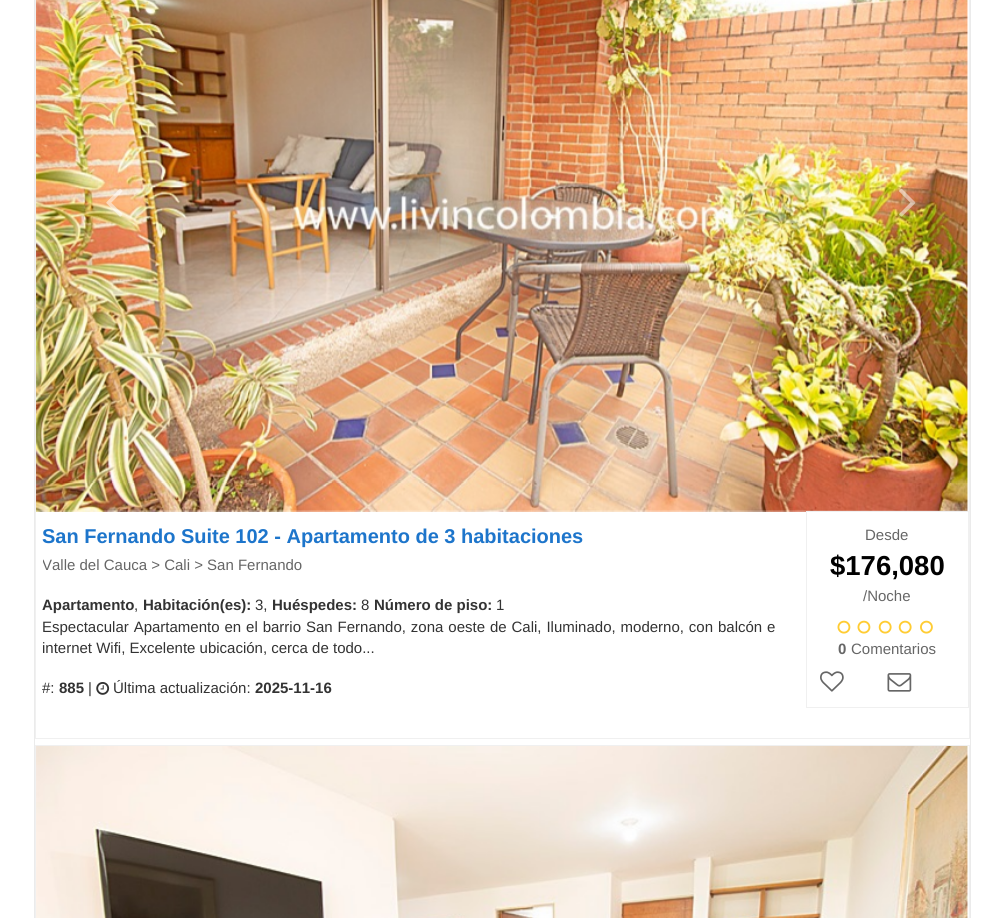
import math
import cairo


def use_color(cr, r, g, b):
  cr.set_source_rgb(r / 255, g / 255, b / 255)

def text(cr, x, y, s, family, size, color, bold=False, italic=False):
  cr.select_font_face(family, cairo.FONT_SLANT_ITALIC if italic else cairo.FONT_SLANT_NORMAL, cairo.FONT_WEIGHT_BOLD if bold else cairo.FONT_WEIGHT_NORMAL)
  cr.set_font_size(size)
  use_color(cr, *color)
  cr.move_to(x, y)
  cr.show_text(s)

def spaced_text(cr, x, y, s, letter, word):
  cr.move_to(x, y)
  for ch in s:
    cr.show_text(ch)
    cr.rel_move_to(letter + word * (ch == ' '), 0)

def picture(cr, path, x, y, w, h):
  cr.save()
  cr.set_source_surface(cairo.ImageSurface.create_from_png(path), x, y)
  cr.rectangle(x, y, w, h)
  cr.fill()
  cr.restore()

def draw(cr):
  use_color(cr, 255, 255, 255)
  cr.paint()
  cr.rectangle(34.5, -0.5, 936, 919)
  use_color(cr, 235, 235, 235)
  cr.set_line_width(1)
  cr.stroke()
  cr.rectangle(35.5, -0.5, 934, 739)
  use_color(cr, 240, 240, 240)
  cr.stroke()
  picture(cr, "img_01.png", 36, 0, 933, 512)
  picture(cr, "img_02.png", 106, 188, 17, 29)
  picture(cr, "img_03.png", 899, 188, 17, 29)
  picture(cr, "img_04.png", 96, 682, 14, 13)
  cr.rectangle(806.5, 511.5, 162, 196)
  cr.stroke()
  picture(cr, "img_05.png", 837, 620, 14, 14)
  picture(cr, "img_05.png", 857, 620, 14, 14)
  picture(cr, "img_06.png", 878, 620, 14, 14)
  picture(cr, "img_06.png", 898, 620, 14, 14)
  picture(cr, "img_07.png", 920, 620, 13, 14)
  picture(cr, "img_08.png", 820, 671, 24, 21)
  picture(cr, "img_09.png", 887, 673, 25, 19)
  cr.rectangle(35.5, 745.5, 934, 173)
  cr.stroke()
  picture(cr, "img_10.png", 36, 746, 933, 172)
  text(cr, 42, 543, "San Fernando Suite 102 - Apartamento de 3 habitaciones", "Liberation Sans", 20, (29, 117, 203), bold=True)
  cr.save()
  cr.rectangle(43, 555, 732, 21)
  cr.clip()
  text(cr, 42, 570, "Valle del Cauca > Cali > San Fernando", "Liberation Sans", 15, (102, 102, 102))
  cr.restore()
  text(cr, 42, 610, "Apartamento", "Liberation Sans", 15, (51, 51, 51), bold=True)
  text(cr, 134, 610, ",", "Liberation Sans", 15, (51, 51, 51))
  text(cr, 143, 610, "Habitación(es):", "Liberation Sans", 15, (51, 51, 51), bold=True)
  text(cr, 255, 610, "3,", "Liberation Sans", 15, (51, 51, 51))
  text(cr, 272, 610, "Huéspedes:", "Liberation Sans", 15, (51, 51, 51), bold=True)
  text(cr, 361, 610, "8", "Liberation Sans", 15, (51, 51, 51))
  text(cr, 374, 610, "Número de piso:", "Liberation Sans", 15, (51, 51, 51), bold=True)
  text(cr, 496, 610, "1", "Liberation Sans", 15, (51, 51, 51))
  spaced_text(cr, 42, 632, "Espectacular Apartamento en el barrio San Fernando, zona oeste de Cali, Iluminado, moderno, con balcón e", 0, 0.75)
  cr.save()
  cr.rectangle(43, 616, 732, 44)
  cr.clip()
  text(cr, 42, 653, "internet Wifi, Excelente ubicación, cerca de todo...", "Liberation Sans", 15, (51, 51, 51))
  cr.restore()
  text(cr, 42, 693, "#:", "Liberation Sans", 15, (51, 51, 51))
  text(cr, 59, 693, "885", "Liberation Sans", 15, (51, 51, 51), bold=True)
  text(cr, 88, 693, "|", "Liberation Sans", 15, (51, 51, 51))
  text(cr, 113, 693, "Última actualización:", "Liberation Sans", 15, (51, 51, 51))
  text(cr, 255, 693, "2025-11-16", "Liberation Sans", 15, (51, 51, 51), bold=True)
  text(cr, 865, 540, "Desde", "Liberation Sans", 15, (102, 102, 102))
  text(cr, 830, 575, "$176,080", "Liberation Sans", 27.5, (0, 0, 0), bold=True)
  text(cr, 863, 601, "/Noche", "Liberation Sans", 15, (102, 102, 102))
  text(cr, 838, 654, "0", "Liberation Sans", 15, (102, 102, 102), bold=True)
  text(cr, 851, 654, "Comentarios", "Liberation Sans", 15, (102, 102, 102))


surface = cairo.ImageSurface(cairo.FORMAT_RGB24, 1003, 918)
cr = cairo.Context(surface)
options = cairo.FontOptions()
options.set_hint_metrics(cairo.HINT_METRICS_OFF)
options.set_hint_style(cairo.HINT_STYLE_NONE)
cr.set_font_options(options)
cr.set_miter_limit(4)
draw(cr)
surface.write_to_png("out.png")
